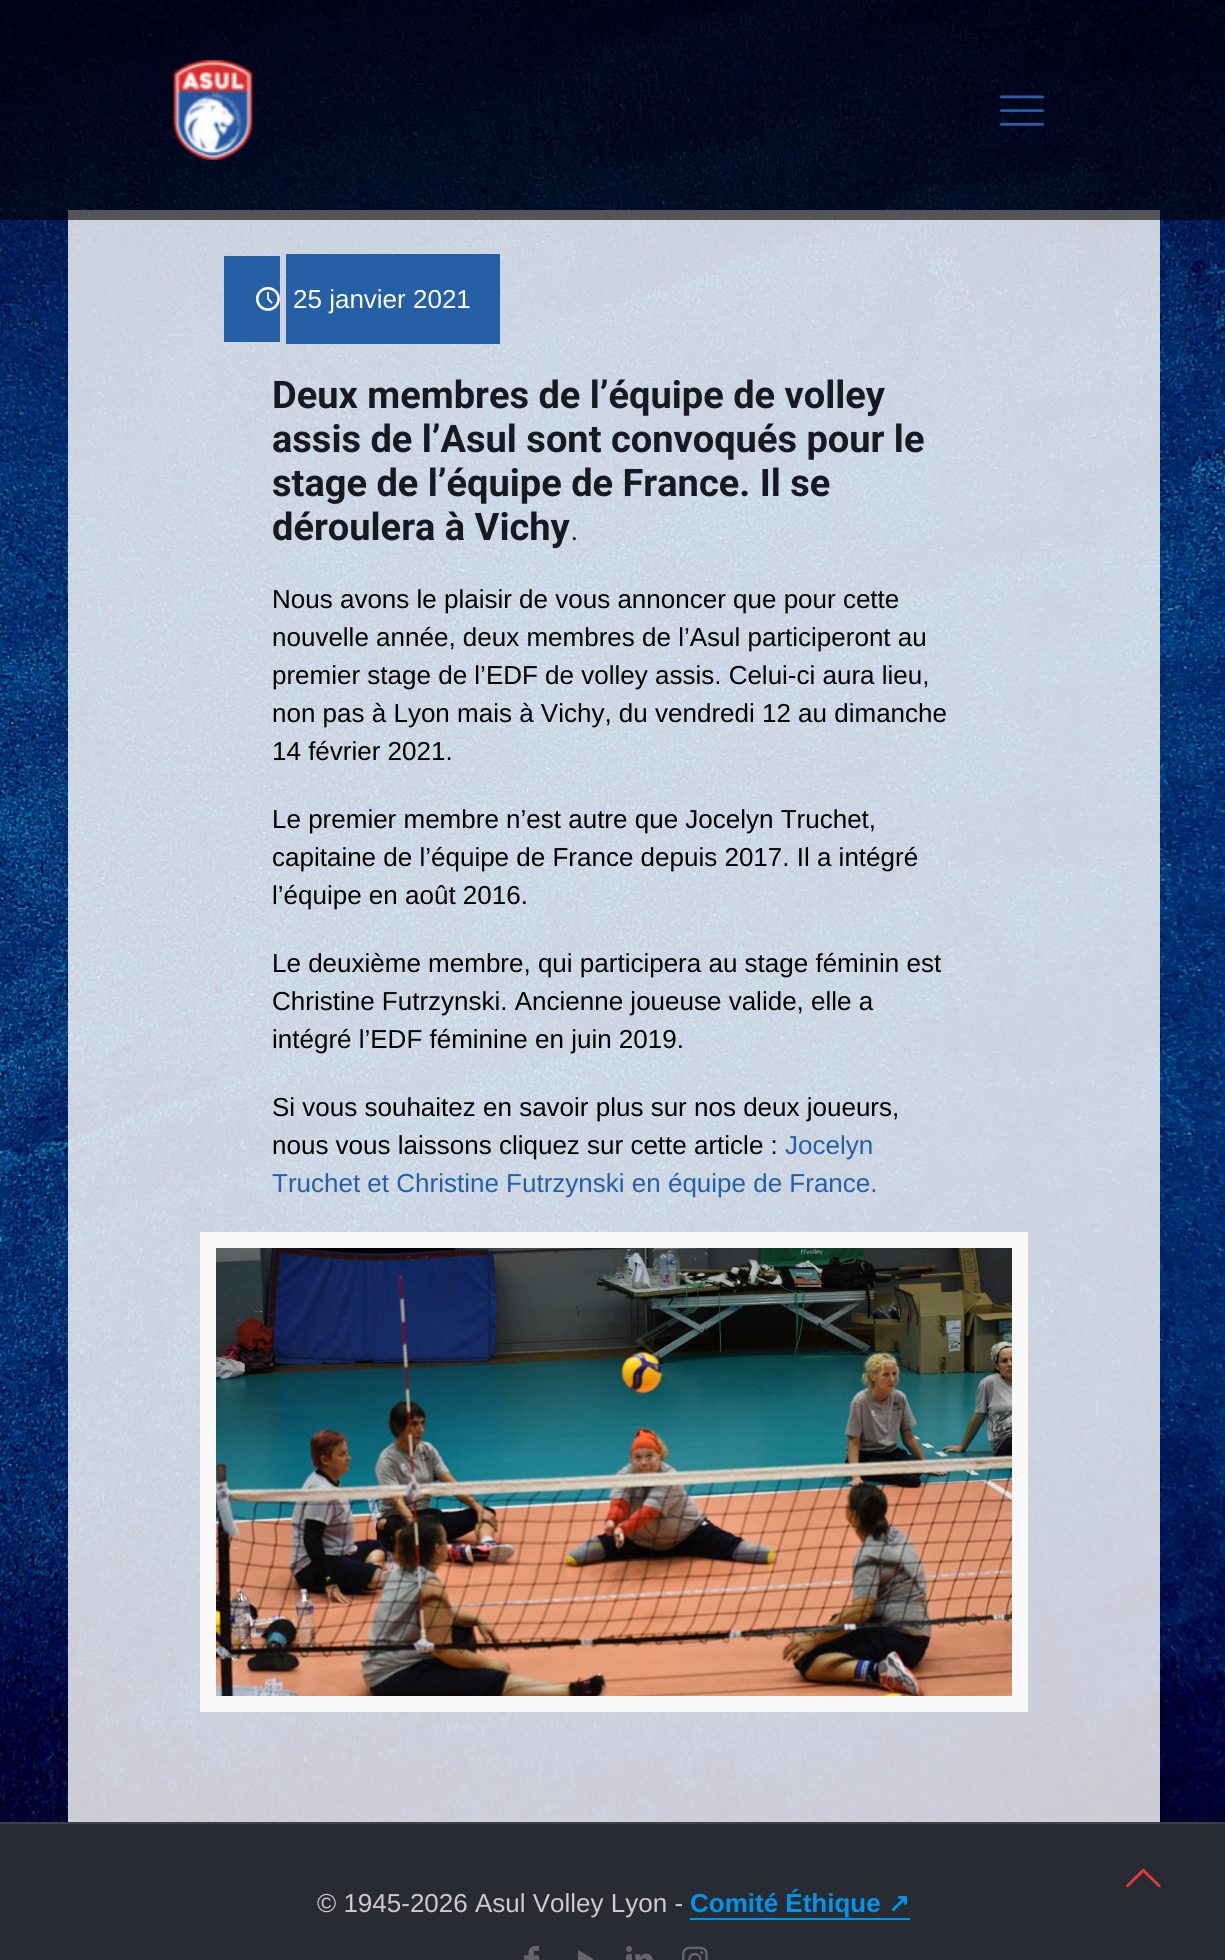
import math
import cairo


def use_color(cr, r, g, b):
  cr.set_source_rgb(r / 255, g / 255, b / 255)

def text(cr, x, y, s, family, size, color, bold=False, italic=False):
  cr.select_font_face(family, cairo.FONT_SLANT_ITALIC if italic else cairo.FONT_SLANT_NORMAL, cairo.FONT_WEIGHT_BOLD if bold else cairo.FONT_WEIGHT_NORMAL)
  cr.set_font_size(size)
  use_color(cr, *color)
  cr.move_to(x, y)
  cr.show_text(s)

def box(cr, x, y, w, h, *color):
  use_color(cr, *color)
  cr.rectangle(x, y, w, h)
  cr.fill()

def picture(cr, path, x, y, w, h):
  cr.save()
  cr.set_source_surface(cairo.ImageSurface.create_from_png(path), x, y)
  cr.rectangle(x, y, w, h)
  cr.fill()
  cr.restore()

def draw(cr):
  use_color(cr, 255, 255, 255)
  cr.paint()
  picture(cr, "img_01.png", 0, 0, 1225, 1822)
  cr.set_source_rgba(1, 1, 1, 0.8)
  cr.rectangle(68, 210, 1092, 1612)
  cr.fill()
  cr.set_source_rgba(0, 0, 0, 0.6)
  cr.rectangle(0, 0, 1225, 220)
  cr.fill()
  picture(cr, "img_02.png", 173, 60, 81, 100)
  picture(cr, "img_03.png", 1000, 95, 44, 31)
  box(cr, 224, 256, 56, 86, 37, 96, 167)
  box(cr, 286, 254, 214, 90, 37, 96, 167)
  picture(cr, "img_04.png", 256, 287, 24, 24)
  cr.rectangle(208, 1240, 812, 464)
  use_color(cr, 248, 248, 248)
  cr.set_line_width(16)
  cr.stroke()
  picture(cr, "img_05.png", 216, 1248, 796, 448)
  box(cr, 0, 1824, 1225, 136, 41, 43, 51)
  box(cr, 0, 1822, 1225, 2, 62, 64, 71)
  box(cr, 690, 1918, 220, 2, 0, 149, 235)
  picture(cr, "img_06.png", 524, 1946, 15, 14)
  picture(cr, "img_07.png", 578, 1950, 15, 10)
  picture(cr, "img_08.png", 626, 1946, 27, 14)
  picture(cr, "img_09.png", 682, 1946, 26, 14)
  picture(cr, "img_10.png", 1126, 1868, 35, 20)
  text(cr, 293, 308, "25 janvier 2021", "Liberation Sans", 26, (255, 255, 255))
  text(cr, 272, 408, "Deux membres de l’équipe de volley", "Roboto", 38, (22, 25, 34), bold=True)
  text(cr, 272, 452, "assis de l’Asul sont convoqués pour le", "Roboto", 38, (22, 25, 34), bold=True)
  text(cr, 272, 496, "stage de l’équipe de France. Il se", "Roboto", 38, (22, 25, 34), bold=True)
  text(cr, 272, 540, "déroulera à Vichy", "Roboto", 38, (22, 25, 34), bold=True)
  text(cr, 570, 540, ".", "Roboto Light", 38, (22, 25, 34))
  text(cr, 272, 608, "Nous avons le plaisir de vous annoncer que pour cette", "Liberation Sans", 26, (0, 0, 0))
  text(cr, 272, 646, "nouvelle année, deux membres de l’Asul participeront au", "Liberation Sans", 26, (0, 0, 0))
  text(cr, 272, 684, "premier stage de l’EDF de volley assis. Celui-ci aura lieu,", "Liberation Sans", 26, (0, 0, 0))
  text(cr, 272, 722, "non pas à Lyon mais à Vichy, du vendredi 12 au dimanche", "Liberation Sans", 26, (0, 0, 0))
  text(cr, 272, 760, "14 février 2021.", "Liberation Sans", 26, (0, 0, 0))
  text(cr, 272, 828, "Le premier membre n’est autre que Jocelyn Truchet,", "Liberation Sans", 26, (0, 0, 0))
  text(cr, 272, 866, "capitaine de l’équipe de France depuis 2017. Il a intégré", "Liberation Sans", 26, (0, 0, 0))
  text(cr, 272, 904, "l’équipe en août 2016.", "Liberation Sans", 26, (0, 0, 0))
  text(cr, 272, 972, "Le deuxième membre, qui participera au stage féminin est", "Liberation Sans", 26, (0, 0, 0))
  text(cr, 272, 1010, "Christine Futrzynski. Ancienne joueuse valide, elle a", "Liberation Sans", 26, (0, 0, 0))
  text(cr, 272, 1048, "intégré l’EDF féminine en juin 2019.", "Liberation Sans", 26, (0, 0, 0))
  text(cr, 272, 1116, "Si vous souhaitez en savoir plus sur nos deux joueurs,", "Liberation Sans", 26, (0, 0, 0))
  text(cr, 272, 1154, "nous vous laissons cliquez sur cette article :", "Liberation Sans", 26, (0, 0, 0))
  text(cr, 785, 1154, "Jocelyn", "Liberation Sans", 26, (37, 96, 167))
  text(cr, 272, 1192, "Truchet et Christine Futrzynski en équipe de France.", "Liberation Sans", 26, (37, 96, 167))
  text(cr, 317, 1912, "© 1945-2026 Asul Volley Lyon -", "Liberation Sans", 26, (204, 204, 204))
  text(cr, 690, 1912, "Comité Éthique", "Liberation Sans", 26, (0, 149, 235), bold=True)
  text(cr, 888, 1912, "↗", "DejaVu Sans", 26, (0, 149, 235), bold=True)


surface = cairo.ImageSurface(cairo.FORMAT_RGB24, 1225, 1960)
cr = cairo.Context(surface)
options = cairo.FontOptions()
options.set_hint_metrics(cairo.HINT_METRICS_OFF)
options.set_hint_style(cairo.HINT_STYLE_NONE)
cr.set_font_options(options)
cr.set_miter_limit(4)
draw(cr)
surface.write_to_png("out.png")
